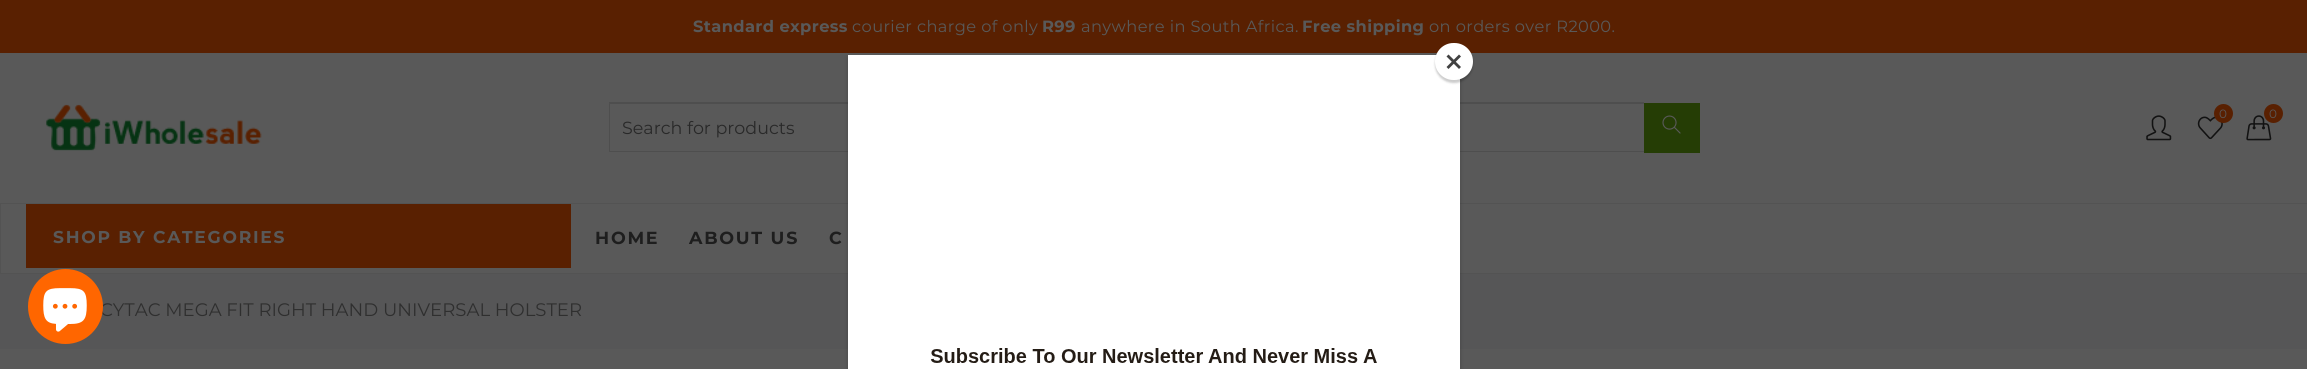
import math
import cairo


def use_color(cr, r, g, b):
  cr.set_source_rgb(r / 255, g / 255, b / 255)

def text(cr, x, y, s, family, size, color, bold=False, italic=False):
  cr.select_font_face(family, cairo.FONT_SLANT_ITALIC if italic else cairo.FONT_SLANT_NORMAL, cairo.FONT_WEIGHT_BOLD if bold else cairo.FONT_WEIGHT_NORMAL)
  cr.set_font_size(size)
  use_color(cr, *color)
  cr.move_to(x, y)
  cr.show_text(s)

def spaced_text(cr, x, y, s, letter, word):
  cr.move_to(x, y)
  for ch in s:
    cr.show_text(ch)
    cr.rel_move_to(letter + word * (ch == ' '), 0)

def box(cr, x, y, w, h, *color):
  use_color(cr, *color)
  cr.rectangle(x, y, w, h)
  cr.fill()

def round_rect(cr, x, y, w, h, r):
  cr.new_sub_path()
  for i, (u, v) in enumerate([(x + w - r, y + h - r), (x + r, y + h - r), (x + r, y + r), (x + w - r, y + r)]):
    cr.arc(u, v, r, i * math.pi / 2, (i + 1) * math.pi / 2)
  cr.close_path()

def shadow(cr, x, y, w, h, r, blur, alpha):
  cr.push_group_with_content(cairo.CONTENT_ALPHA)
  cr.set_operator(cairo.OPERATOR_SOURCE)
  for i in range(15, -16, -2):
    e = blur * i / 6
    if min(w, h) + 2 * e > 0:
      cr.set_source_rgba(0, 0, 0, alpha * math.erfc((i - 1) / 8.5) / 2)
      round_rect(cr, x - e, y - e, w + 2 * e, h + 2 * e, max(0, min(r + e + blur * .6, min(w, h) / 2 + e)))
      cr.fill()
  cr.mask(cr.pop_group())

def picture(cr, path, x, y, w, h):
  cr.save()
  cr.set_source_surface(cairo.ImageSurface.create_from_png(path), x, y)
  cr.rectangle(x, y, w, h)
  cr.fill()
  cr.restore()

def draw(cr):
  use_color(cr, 89, 89, 89)
  cr.paint()
  box(cr, 0, 0, 2307, 53, 89, 32, 1)
  picture(cr, "img_01.png", 46, 104, 216, 47)
  picture(cr, "img_02.png", 2197, 116, 26, 24)
  cr.arc(2223.5, 113.5, 9.5, 0, 2 * math.pi)
  cr.fill()
  picture(cr, "img_03.png", 2246, 115, 26, 26)
  cr.arc(2273.5, 113.5, 9.5, 0, 2 * math.pi)
  cr.fill()
  picture(cr, "img_04.png", 2146, 115, 26, 26)
  use_color(cr, 78, 78, 78)
  cr.new_path()
  cr.move_to(609, 102)
  cr.line_to(1644, 102)
  cr.line_to(1644, 104)
  cr.line_to(610, 104)
  cr.close_path()
  cr.fill()
  cr.new_path()
  cr.move_to(1644, 152)
  cr.line_to(609, 152)
  cr.line_to(610, 151)
  cr.line_to(1644, 151)
  cr.close_path()
  cr.fill()
  cr.set_source_rgba(0.176, 0.176, 0.176, 0.25)
  cr.new_path()
  cr.move_to(609, 152)
  cr.line_to(609, 102)
  cr.line_to(610, 104)
  cr.line_to(610, 151)
  cr.close_path()
  cr.fill()
  box(cr, 1644, 103, 56, 50, 37, 61, 5)
  picture(cr, "img_05.png", 1662, 115, 19, 19)
  cr.rectangle(0.5, 203.5, 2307, 70)
  use_color(cr, 83, 83, 83)
  cr.set_line_width(1)
  cr.stroke()
  box(cr, 26, 204, 545, 64, 89, 32, 1)
  box(cr, 0, 274, 2307, 75, 86, 86, 87)
  use_color(cr, 0, 0, 0)
  shadow(cr, 848, 58, 612, 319, 0, 2.5, 0.2)
  picture(cr, "img_07.png", 848, 55, 612, 314)
  shadow(cr, 1435, 45, 38, 38, 19, 1, 0.2)
  use_color(cr, 255, 255, 255)
  round_rect(cr, 1435, 43, 38, 37, 18.5)
  cr.fill()
  use_color(cr, 65, 65, 65)
  cr.new_path()
  cr.move_to(1459, 54.5)
  cr.line_to(1461, 56.5)
  cr.line_to(1448.5, 69)
  cr.line_to(1446.5, 67)
  cr.close_path()
  cr.fill()
  cr.new_path()
  cr.move_to(1446.5, 56.5)
  cr.line_to(1448.5, 54.5)
  cr.line_to(1461, 67)
  cr.line_to(1459, 69)
  cr.close_path()
  cr.fill()
  cr.select_font_face("Montserrat", cairo.FONT_SLANT_NORMAL, cairo.FONT_WEIGHT_BOLD)
  cr.set_font_size(16.25)
  use_color(cr, 89, 89, 89)
  spaced_text(cr, 693, 32, "Standard express", 0.4, 0)
  cr.select_font_face("Montserrat")
  spaced_text(cr, 852, 32, "courier charge of only", 0.4, 0)
  cr.select_font_face("Montserrat", cairo.FONT_SLANT_NORMAL, cairo.FONT_WEIGHT_BOLD)
  spaced_text(cr, 1042, 32, "R99", 0.4, 0)
  cr.select_font_face("Montserrat")
  spaced_text(cr, 1081, 32, "anywhere in South Africa.", 0.4, 0)
  cr.select_font_face("Montserrat", cairo.FONT_SLANT_NORMAL, cairo.FONT_WEIGHT_BOLD)
  spaced_text(cr, 1302, 32, "Free shipping", 0.4, 0)
  cr.select_font_face("Montserrat")
  spaced_text(cr, 1429, 32, "on orders over R2000.", 0.4, 0)
  text(cr, 2219, 118, "0", "Montserrat", 12, (89, 89, 89))
  text(cr, 2269, 118, "0", "Montserrat", 12, (89, 89, 89))
  text(cr, 622, 134, "Search for products", "Montserrat", 17.5, (41, 41, 41))
  cr.select_font_face("Montserrat", cairo.FONT_SLANT_NORMAL, cairo.FONT_WEIGHT_BOLD)
  cr.set_font_size(17.1)
  use_color(cr, 89, 89, 89)
  spaced_text(cr, 53, 243, "SHOP BY CATEGORIES", 1.75, 0)
  cr.set_font_size(17.5)
  use_color(cr, 30, 30, 30)
  spaced_text(cr, 595, 244, "HOME", 1.75, 0)
  spaced_text(cr, 689, 244, "ABOUT US", 1.75, 0)
  spaced_text(cr, 829, 244, "C", 1.75, 0)
  text(cr, 100, 316, "CYTAC MEGA FIT RIGHT HAND UNIVERSAL HOLSTER", "Montserrat", 18.1, (47, 47, 47))
  use_color(cr, 255, 102, 0)
  cr.new_path()
  cr.arc(65.5, 306.5, 37.5, 0, 2 * math.pi)
  cr.fill()
  picture(cr, "img_06.png", 43, 288, 44, 44)


surface = cairo.ImageSurface(cairo.FORMAT_RGB24, 2307, 369)
cr = cairo.Context(surface)
options = cairo.FontOptions()
options.set_hint_metrics(cairo.HINT_METRICS_OFF)
options.set_hint_style(cairo.HINT_STYLE_NONE)
cr.set_font_options(options)
cr.set_miter_limit(4)
draw(cr)
surface.write_to_png("out.png")
